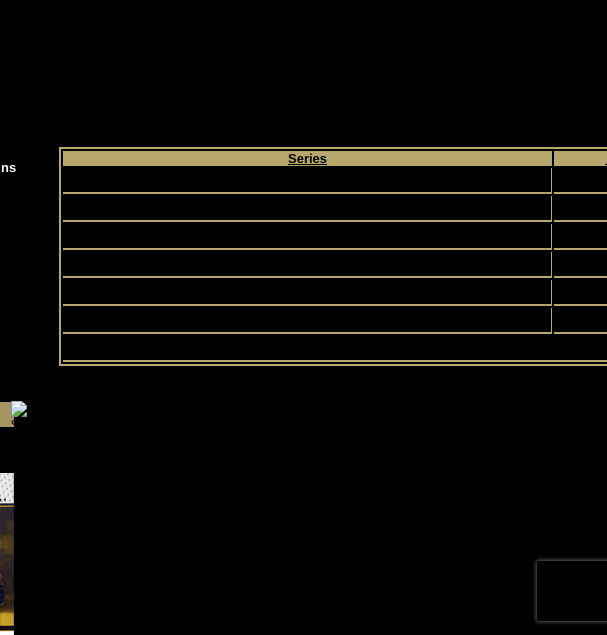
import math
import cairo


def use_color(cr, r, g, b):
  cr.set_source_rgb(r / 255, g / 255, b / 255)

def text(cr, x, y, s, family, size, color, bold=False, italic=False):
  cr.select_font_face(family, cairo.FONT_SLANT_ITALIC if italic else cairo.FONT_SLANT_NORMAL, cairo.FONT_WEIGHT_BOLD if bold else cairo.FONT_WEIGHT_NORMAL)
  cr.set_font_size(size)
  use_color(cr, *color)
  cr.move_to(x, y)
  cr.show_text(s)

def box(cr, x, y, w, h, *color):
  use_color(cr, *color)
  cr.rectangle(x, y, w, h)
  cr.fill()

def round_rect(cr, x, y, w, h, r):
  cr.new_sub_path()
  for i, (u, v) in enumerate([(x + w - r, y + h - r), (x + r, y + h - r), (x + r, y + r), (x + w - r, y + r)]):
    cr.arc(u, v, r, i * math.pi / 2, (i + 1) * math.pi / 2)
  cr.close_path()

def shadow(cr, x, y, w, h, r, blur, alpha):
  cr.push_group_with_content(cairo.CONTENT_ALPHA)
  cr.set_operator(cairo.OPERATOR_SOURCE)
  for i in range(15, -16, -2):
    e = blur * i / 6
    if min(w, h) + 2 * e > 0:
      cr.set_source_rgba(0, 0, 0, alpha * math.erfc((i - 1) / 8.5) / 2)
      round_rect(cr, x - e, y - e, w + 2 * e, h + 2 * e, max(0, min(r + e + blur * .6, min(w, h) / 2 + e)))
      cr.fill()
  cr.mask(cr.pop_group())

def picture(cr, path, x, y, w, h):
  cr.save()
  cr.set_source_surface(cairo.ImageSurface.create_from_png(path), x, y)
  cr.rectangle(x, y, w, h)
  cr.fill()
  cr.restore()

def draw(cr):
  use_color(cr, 0, 0, 0)
  cr.paint()
  cr.rectangle(60, 148, 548, 217)
  use_color(cr, 184, 167, 107)
  cr.stroke()
  box(cr, 63, 151, 489, 15, 184, 167, 107)
  box(cr, 288, 164, 39, 1, 0, 0, 0)
  box(cr, 554, 151, 53, 15, 184, 167, 107)
  box(cr, 605, 164, 2, 1, 0, 0, 0)
  box(cr, 551, 168, 1, 26, 184, 167, 107)
  box(cr, 63, 192, 489, 2, 184, 167, 107)
  box(cr, 554, 192, 53, 2, 184, 167, 107)
  box(cr, 551, 196, 1, 26, 184, 167, 107)
  box(cr, 63, 220, 489, 2, 184, 167, 107)
  box(cr, 554, 220, 53, 2, 184, 167, 107)
  box(cr, 551, 224, 1, 26, 184, 167, 107)
  box(cr, 63, 248, 489, 2, 184, 167, 107)
  box(cr, 554, 248, 53, 2, 184, 167, 107)
  box(cr, 551, 252, 1, 26, 184, 167, 107)
  box(cr, 63, 276, 489, 2, 184, 167, 107)
  box(cr, 554, 276, 53, 2, 184, 167, 107)
  box(cr, 551, 280, 1, 26, 184, 167, 107)
  box(cr, 63, 304, 489, 2, 184, 167, 107)
  box(cr, 554, 304, 53, 2, 184, 167, 107)
  box(cr, 551, 308, 1, 26, 184, 167, 107)
  box(cr, 63, 332, 489, 2, 184, 167, 107)
  box(cr, 554, 332, 53, 2, 184, 167, 107)
  box(cr, 63, 360, 544, 2, 184, 167, 107)
  box(cr, 0, 402, 14, 25, 164, 148, 96)
  picture(cr, "img_01.png", 11, 401, 16, 24)
  picture(cr, "img_02.png", 0, 473, 14, 162)
  cr.save()
  cr.set_fill_rule(cairo.FILL_RULE_EVEN_ODD)
  cr.new_path()
  cr.move_to(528, 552)
  cr.line_to(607, 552)
  cr.line_to(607, 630)
  cr.line_to(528, 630)
  cr.close_path()
  cr.move_to(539, 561)
  cr.line_to(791, 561)
  cr.curve_to(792, 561, 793, 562, 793, 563)
  cr.line_to(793, 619)
  cr.curve_to(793, 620, 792, 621, 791, 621)
  cr.line_to(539, 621)
  cr.curve_to(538, 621, 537, 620, 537, 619)
  cr.line_to(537, 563)
  cr.curve_to(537, 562, 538, 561, 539, 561)
  cr.close_path()
  cr.clip()
  use_color(cr, 128, 128, 128)
  shadow(cr, 537, 561, 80, 60, 2, 2.5, 1)
  cr.restore()
  text(cr, 288, 163, "Series", "Liberation Sans", 13, (0, 0, 0), bold=True)
  text(cr, 1, 172, "ns", "Liberation Sans", 13, (255, 255, 255), bold=True)


surface = cairo.ImageSurface(cairo.FORMAT_RGB24, 607, 635)
cr = cairo.Context(surface)
options = cairo.FontOptions()
options.set_hint_metrics(cairo.HINT_METRICS_OFF)
options.set_hint_style(cairo.HINT_STYLE_NONE)
cr.set_font_options(options)
cr.set_miter_limit(4)
draw(cr)
surface.write_to_png("out.png")
